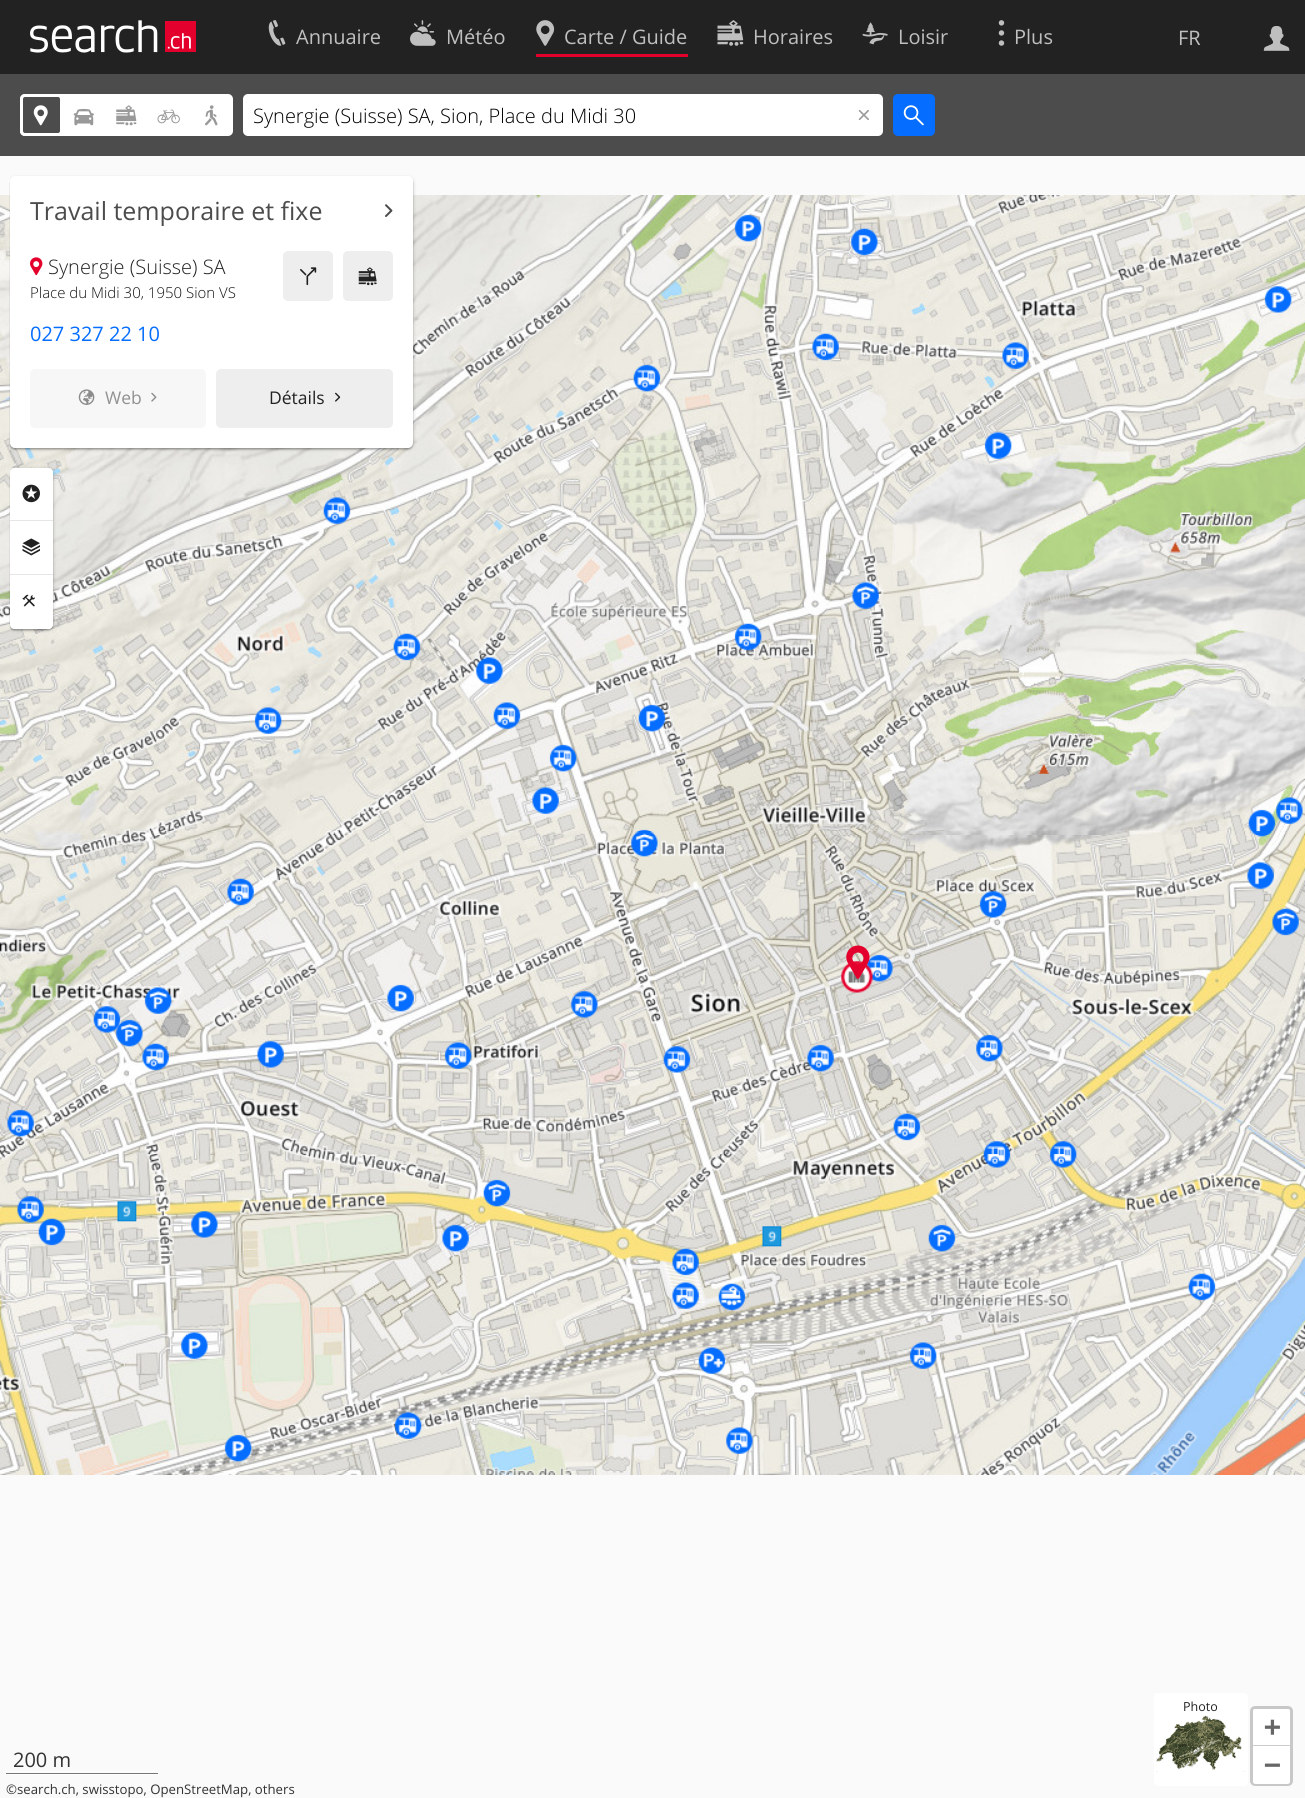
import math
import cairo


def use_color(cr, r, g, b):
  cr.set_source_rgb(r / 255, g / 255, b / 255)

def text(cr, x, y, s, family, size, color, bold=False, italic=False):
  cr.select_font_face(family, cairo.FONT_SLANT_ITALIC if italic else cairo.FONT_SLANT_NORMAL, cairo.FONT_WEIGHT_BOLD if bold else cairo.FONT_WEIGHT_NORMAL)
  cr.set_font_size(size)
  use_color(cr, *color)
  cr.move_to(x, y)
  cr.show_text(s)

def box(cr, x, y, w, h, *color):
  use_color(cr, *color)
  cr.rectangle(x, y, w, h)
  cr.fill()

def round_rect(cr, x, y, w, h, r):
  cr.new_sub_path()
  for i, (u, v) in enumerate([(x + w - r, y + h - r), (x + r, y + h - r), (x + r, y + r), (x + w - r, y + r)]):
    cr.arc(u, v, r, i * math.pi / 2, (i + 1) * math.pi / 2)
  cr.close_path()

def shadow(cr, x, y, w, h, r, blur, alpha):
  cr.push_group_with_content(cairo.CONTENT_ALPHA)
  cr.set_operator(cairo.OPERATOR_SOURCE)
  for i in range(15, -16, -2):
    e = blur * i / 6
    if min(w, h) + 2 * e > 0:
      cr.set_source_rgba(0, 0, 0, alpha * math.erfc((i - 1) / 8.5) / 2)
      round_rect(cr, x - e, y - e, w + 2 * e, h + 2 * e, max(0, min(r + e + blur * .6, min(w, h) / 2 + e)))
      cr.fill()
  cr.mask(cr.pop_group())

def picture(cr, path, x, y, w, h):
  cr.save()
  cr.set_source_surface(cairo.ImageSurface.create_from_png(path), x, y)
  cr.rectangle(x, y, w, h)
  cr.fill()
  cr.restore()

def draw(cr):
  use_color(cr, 250, 250, 250)
  cr.paint()
  box(cr, 0, 0, 1305, 74, 34, 34, 34)
  picture(cr, "img_01.png", 30, 20, 166, 33)
  picture(cr, "img_02.png", 268, 20, 18, 26)
  picture(cr, "img_03.png", 410, 20, 26, 26)
  box(cr, 536, 54, 152, 3, 228, 0, 44)
  picture(cr, "img_04.png", 536, 20, 19, 26)
  picture(cr, "img_05.png", 717, 20, 27, 26)
  picture(cr, "img_06.png", 862, 22, 26, 23)
  picture(cr, "img_07.png", 998, 20, 7, 26)
  picture(cr, "img_08.png", 1263, 25, 27, 26)
  box(cr, 0, 74, 1305, 82, 76, 76, 76)
  use_color(cr, 255, 255, 255)
  round_rect(cr, 20, 94, 213, 42, 5)
  cr.fill()
  use_color(cr, 76, 76, 76)
  round_rect(cr, 21.5, 95.5, 40, 39, 3.5)
  cr.fill_preserve()
  use_color(cr, 255, 255, 255)
  cr.set_line_width(3)
  cr.stroke()
  picture(cr, "img_09.png", 33, 105, 15, 21)
  picture(cr, "img_10.png", 73, 108, 21, 18)
  picture(cr, "img_11.png", 116, 105, 21, 21)
  picture(cr, "img_12.png", 157, 109, 23, 15)
  picture(cr, "img_13.png", 205, 105, 13, 21)
  round_rect(cr, 243, 94, 640, 42, 5)
  cr.fill()
  picture(cr, "img_14.png", 858, 110, 11, 10)
  use_color(cr, 5, 109, 255)
  round_rect(cr, 893, 94, 42, 42, 5)
  cr.fill()
  picture(cr, "img_15.png", 903, 105, 21, 21)
  picture(cr, "img_27.png", 0, 195, 190, 640)
  picture(cr, "img_28.png", 190, 195, 640, 640)
  picture(cr, "img_34.png", 190, 214, 640, 621)
  cr.save()
  cr.rectangle(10, 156, 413, 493)
  cr.clip()
  use_color(cr, 0, 0, 0)
  shadow(cr, 10, 178, 403, 271, 5, 2, 0.2)
  cr.restore()
  use_color(cr, 0, 0, 0)
  shadow(cr, 10, 179, 403, 271, 5, 0.5, 0.12)
  shadow(cr, 10, 178, 403, 271, 5, 0.5, 0.14)
  use_color(cr, 255, 255, 255)
  round_rect(cr, 10, 176, 403, 272, 5)
  cr.fill()
  picture(cr, "img_16.png", 385, 204, 8, 13)
  picture(cr, "img_17.png", 30, 257, 13, 19)
  use_color(cr, 238, 238, 238)
  round_rect(cr, 283, 251, 50, 50, 5)
  cr.fill()
  picture(cr, "img_18.png", 300, 267, 17, 19)
  round_rect(cr, 343, 251, 50, 50, 5)
  cr.fill()
  picture(cr, "img_19.png", 358, 267, 19, 19)
  use_color(cr, 247, 247, 247)
  round_rect(cr, 30, 369, 176, 59, 5)
  cr.fill()
  picture(cr, "img_20.png", 78, 389, 17, 16)
  picture(cr, "img_21.png", 151, 392, 6, 10)
  use_color(cr, 238, 238, 238)
  round_rect(cr, 216, 369, 177, 59, 5)
  cr.fill()
  picture(cr, "img_22.png", 335, 392, 6, 10)
  picture(cr, "img_33.png", 0, 545, 190, 290)
  cr.save()
  cr.rectangle(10, 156, 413, 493)
  cr.clip()
  use_color(cr, 0, 0, 0)
  shadow(cr, 10, 469, 43, 161, 5, 2, 0.2)
  cr.restore()
  use_color(cr, 0, 0, 0)
  shadow(cr, 10, 470, 43, 161, 5, 0.5, 0.12)
  shadow(cr, 10, 469, 43, 161, 5, 0.5, 0.14)
  use_color(cr, 255, 255, 255)
  round_rect(cr, 10, 468, 43, 161, 5)
  cr.fill()
  cr.save()
  round_rect(cr, 10, 468, 43, 161, 4)
  cr.clip()
  cr.new_path()
  cr.move_to(15, 468)
  cr.line_to(48, 468)
  cr.curve_to(51, 468, 53, 470, 53, 473)
  cr.line_to(53, 521)
  cr.line_to(10, 521)
  cr.line_to(10, 473)
  cr.curve_to(10, 470, 12, 468, 15, 468)
  cr.close_path()
  cr.fill()
  cr.restore()
  box(cr, 10, 520, 43, 1, 230, 230, 230)
  picture(cr, "img_23.png", 22, 484, 18, 19)
  box(cr, 10, 574, 43, 1, 230, 230, 230)
  picture(cr, "img_24.png", 22, 538, 18, 18)
  cr.save()
  round_rect(cr, 10, 468, 43, 161, 4)
  cr.clip()
  use_color(cr, 255, 255, 255)
  cr.new_path()
  cr.move_to(10, 575)
  cr.line_to(53, 575)
  cr.line_to(53, 624)
  cr.curve_to(53, 627, 51, 629, 48, 629)
  cr.line_to(15, 629)
  cr.curve_to(12, 629, 10, 627, 10, 624)
  cr.close_path()
  cr.fill()
  cr.restore()
  picture(cr, "img_25.png", 22, 594, 13, 13)
  use_color(cr, 255, 255, 255)
  round_rect(cr, 1154, 1693, 94, 93, 4)
  cr.fill()
  picture(cr, "img_26.png", 1156, 1715, 89, 57)
  picture(cr, "img_29.png", 830, 195, 475, 640)
  picture(cr, "img_30.png", 0, 835, 190, 640)
  picture(cr, "img_31.png", 190, 835, 640, 640)
  picture(cr, "img_32.png", 830, 835, 475, 640)
  picture(cr, "img_35.png", 830, 195, 473, 640)
  picture(cr, "img_36.png", 0, 835, 190, 558)
  picture(cr, "img_37.png", 190, 835, 640, 640)
  picture(cr, "img_38.png", 830, 835, 475, 640)
  picture(cr, "img_39.png", 846, 945, 24, 34)
  round_rect(cr, 1251.5, 1707.5, 40, 77, 3.5)
  use_color(cr, 200, 200, 200)
  cr.stroke()
  use_color(cr, 255, 255, 255)
  cr.new_path()
  cr.move_to(1255.5, 1709)
  cr.line_to(1287.5, 1709)
  cr.curve_to(1289, 1709, 1290, 1710, 1290, 1711.5)
  cr.line_to(1290, 1746)
  cr.line_to(1253, 1746)
  cr.line_to(1253, 1711.5)
  cr.curve_to(1253, 1710, 1254, 1709, 1255.5, 1709)
  cr.close_path()
  cr.fill()
  box(cr, 1253, 1745, 37, 1, 204, 204, 204)
  use_color(cr, 255, 255, 255)
  cr.new_path()
  cr.move_to(1253, 1746)
  cr.line_to(1290, 1746)
  cr.line_to(1290, 1781.5)
  cr.curve_to(1290, 1783, 1289, 1784, 1287.5, 1784)
  cr.line_to(1255.5, 1784)
  cr.curve_to(1254, 1784, 1253, 1783, 1253, 1781.5)
  cr.close_path()
  cr.fill()
  use_color(cr, 253, 253, 253)
  cr.new_path()
  cr.move_to(6, 1749)
  cr.line_to(6, 1775)
  cr.line_to(158, 1775)
  cr.line_to(158, 1749)
  cr.line_to(158, 1774)
  cr.line_to(6, 1774)
  cr.close_path()
  cr.fill()
  box(cr, 6, 1771, 152, 1, 253, 253, 253)
  box(cr, 6, 1773, 152, 1, 119, 119, 119)
  text(cr, 296, 44, "Annuaire", "Open Sans", 20, (191, 191, 191))
  text(cr, 446, 44, "Météo", "Open Sans", 20, (191, 191, 191))
  text(cr, 564, 44, "Carte / Guide", "Open Sans", 20, (191, 191, 191))
  text(cr, 753, 44, "Horaires", "Open Sans", 20, (191, 191, 191))
  text(cr, 898, 44, "Loisir", "Open Sans", 20, (191, 191, 191))
  text(cr, 1014, 44, "Plus", "Open Sans", 20, (191, 191, 191))
  text(cr, 1178, 45, "FR", "Open Sans", 20, (191, 191, 191))
  text(cr, 253, 123, "Synergie (Suisse) SA, Sion, Place du Midi 30", "Open Sans Light", 20, (0, 0, 0))
  text(cr, 30, 220, "Travail temporaire et fixe", "Open Sans", 25, (76, 76, 76))
  text(cr, 48, 274, "Synergie (Suisse) SA", "Open Sans Light", 20, (34, 34, 34))
  text(cr, 30, 298, "Place du Midi 30, 1950 Sion VS", "Open Sans Light", 15, (17, 17, 17))
  text(cr, 30, 341, "027 327 22 10", "Open Sans", 20, (5, 109, 255))
  text(cr, 105, 404, "Web", "Open Sans", 17.5, (145, 145, 145))
  text(cr, 269, 404, "Détails", "Open Sans", 17.5, (34, 34, 34))
  text(cr, 1183, 1711, "Photo", "Open Sans", 12.5, (34, 34, 34))
  text(cr, 1264, 1736, "+", "DejaVu Sans Mono", 28, (102, 102, 102), bold=True)
  text(cr, 1264, 1774, "−", "DejaVu Sans Mono", 28, (102, 102, 102), bold=True)
  text(cr, 13, 1767, "200 m", "Open Sans", 20, (51, 51, 51))
  text(cr, 6, 1794, "©search.ch, swisstopo, OpenStreetMap, others", "Open Sans", 13.2, (51, 51, 51))


surface = cairo.ImageSurface(cairo.FORMAT_RGB24, 1305, 1798)
cr = cairo.Context(surface)
options = cairo.FontOptions()
options.set_hint_metrics(cairo.HINT_METRICS_OFF)
options.set_hint_style(cairo.HINT_STYLE_NONE)
cr.set_font_options(options)
cr.set_miter_limit(4)
draw(cr)
surface.write_to_png("out.png")
